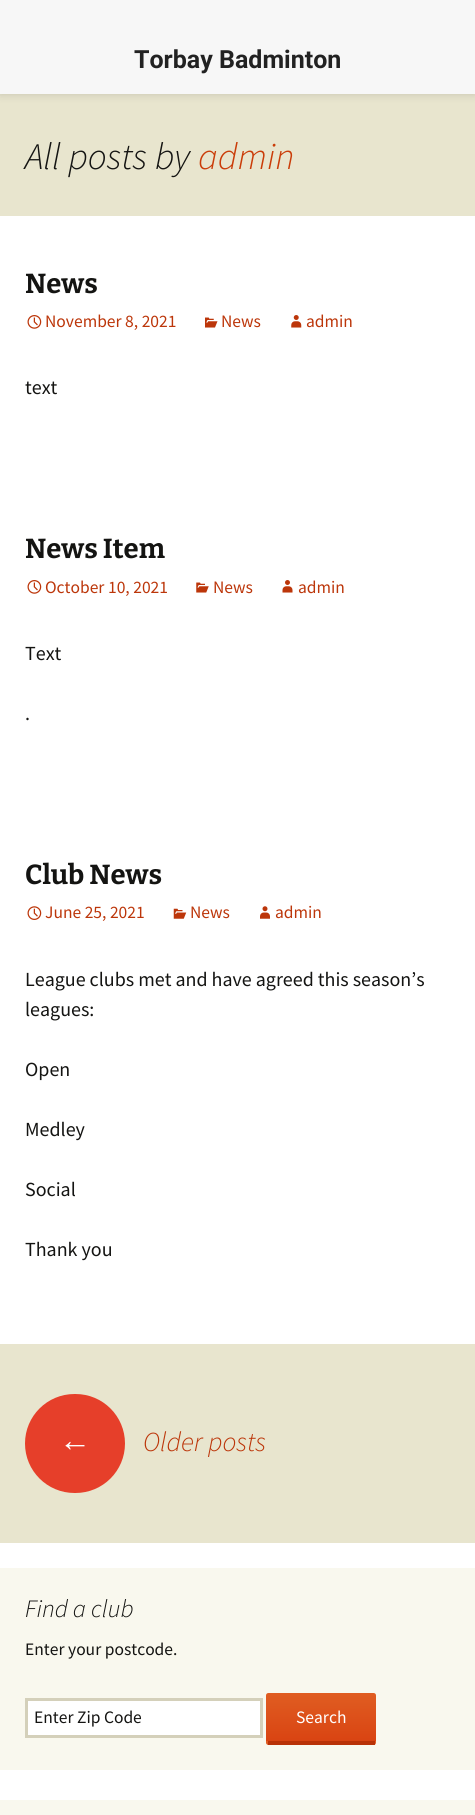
import math
import cairo


def use_color(cr, r, g, b):
  cr.set_source_rgb(r / 255, g / 255, b / 255)

def text(cr, x, y, s, family, size, color, bold=False, italic=False):
  cr.select_font_face(family, cairo.FONT_SLANT_ITALIC if italic else cairo.FONT_SLANT_NORMAL, cairo.FONT_WEIGHT_BOLD if bold else cairo.FONT_WEIGHT_NORMAL)
  cr.set_font_size(size)
  use_color(cr, *color)
  cr.move_to(x, y)
  cr.show_text(s)

def box(cr, x, y, w, h, *color):
  use_color(cr, *color)
  cr.rectangle(x, y, w, h)
  cr.fill()

def round_rect(cr, x, y, w, h, r):
  cr.new_sub_path()
  for i, (u, v) in enumerate([(x + w - r, y + h - r), (x + r, y + h - r), (x + r, y + r), (x + w - r, y + r)]):
    cr.arc(u, v, r, i * math.pi / 2, (i + 1) * math.pi / 2)
  cr.close_path()

def shadow(cr, x, y, w, h, r, blur, alpha):
  cr.push_group_with_content(cairo.CONTENT_ALPHA)
  cr.set_operator(cairo.OPERATOR_SOURCE)
  for i in range(15, -16, -2):
    e = blur * i / 6
    if min(w, h) + 2 * e > 0:
      cr.set_source_rgba(0, 0, 0, alpha * math.erfc((i - 1) / 8.5) / 2)
      round_rect(cr, x - e, y - e, w + 2 * e, h + 2 * e, max(0, min(r + e + blur * .6, min(w, h) / 2 + e)))
      cr.fill()
  cr.mask(cr.pop_group())

def picture(cr, path, x, y, w, h):
  cr.save()
  cr.set_source_surface(cairo.ImageSurface.create_from_png(path), x, y)
  cr.rectangle(x, y, w, h)
  cr.fill()
  cr.restore()

def draw(cr):
  use_color(cr, 255, 255, 255)
  cr.paint()
  box(cr, 0, 94, 475, 122, 232, 229, 206)
  use_color(cr, 0, 0, 0)
  shadow(cr, 0, 0, 475, 94, 0, 5, 0.15)
  box(cr, 0, 0, 475, 94, 247, 247, 247)
  picture(cr, "img_01.png", 27, 315, 15, 14)
  picture(cr, "img_02.png", 205, 317, 13, 11)
  picture(cr, "img_03.png", 291, 315, 11, 13)
  picture(cr, "img_01.png", 27, 580, 15, 14)
  picture(cr, "img_04.png", 196, 582, 13, 11)
  picture(cr, "img_05.png", 282, 580, 11, 13)
  picture(cr, "img_06.png", 27, 906, 15, 14)
  picture(cr, "img_07.png", 173, 908, 14, 11)
  picture(cr, "img_08.png", 260, 906, 10, 13)
  box(cr, 0, 1344, 475, 199, 232, 229, 206)
  use_color(cr, 230, 63, 42)
  round_rect(cr, 25, 1394, 100, 99, 49.5)
  cr.fill()
  box(cr, 0, 1568, 475, 202, 249, 248, 238)
  use_color(cr, 255, 255, 255)
  cr.rectangle(26.5, 1699.5, 235, 37)
  cr.fill_preserve()
  use_color(cr, 212, 208, 186)
  cr.set_line_width(3)
  cr.stroke()
  gradient = cairo.LinearGradient(321, 1693, 321, 1741)
  gradient.add_color_stop_rgba(0, 0.878, 0.365, 0.133, 1)
  gradient.add_color_stop_rgba(1, 0.851, 0.267, 0.071, 1)
  cr.set_source(gradient)
  cr.new_path()
  cr.move_to(268.5, 1693)
  cr.line_to(373.5, 1693)
  cr.curve_to(375, 1693, 376, 1694, 376, 1695.5)
  cr.line_to(376, 1741)
  cr.line_to(266, 1741)
  cr.line_to(266, 1695.5)
  cr.curve_to(266, 1694, 267, 1693, 268.5, 1693)
  cr.close_path()
  cr.fill()
  gradient = cairo.LinearGradient(321, 1741, 321, 1790)
  gradient.add_color_stop_rgba(0, 0.878, 0.365, 0.133, 1)
  gradient.add_color_stop_rgba(1, 0.851, 0.267, 0.071, 1)
  cr.set_source(gradient)
  cr.new_path()
  cr.move_to(266, 1741)
  cr.line_to(376, 1741)
  cr.line_to(376, 1742.5)
  cr.curve_to(376, 1744, 375, 1745, 373.5, 1745)
  cr.line_to(268.5, 1745)
  cr.curve_to(267, 1745, 266, 1744, 266, 1742.5)
  cr.close_path()
  cr.fill()
  box(cr, 268, 1741, 107, 4, 185, 50, 7)
  box(cr, 0, 1800, 475, 15, 249, 248, 238)
  text(cr, 134, 68, "Torbay Badminton", "Roboto", 25, (34, 34, 34), bold=True)
  text(cr, 25, 169, "All posts by", "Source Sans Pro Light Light", 37.5, (20, 20, 18), italic=True)
  text(cr, 198, 169, "admin", "Source Sans Pro Light Light", 37.5, (202, 60, 8), italic=True)
  text(cr, 25, 293, "News", "Bitter Thin", 27.5, (20, 20, 18))
  text(cr, 45, 327, "November 8, 2021", "Source Sans Pro", 17.5, (188, 54, 10))
  text(cr, 221, 327, "News", "Source Sans Pro", 17.5, (188, 54, 10))
  text(cr, 306, 327, "admin", "Source Sans Pro", 17.5, (188, 54, 10))
  text(cr, 25, 394, "text", "Source Sans Pro", 20, (20, 20, 18))
  text(cr, 25, 558, "News Item", "Bitter Thin", 27.5, (20, 20, 18))
  text(cr, 45, 593, "October 10, 2021", "Source Sans Pro", 17.5, (188, 54, 10))
  text(cr, 213, 593, "News", "Source Sans Pro", 17.5, (188, 54, 10))
  text(cr, 298, 593, "admin", "Source Sans Pro", 17.5, (188, 54, 10))
  text(cr, 25, 660, "Text", "Source Sans Pro", 20, (20, 20, 18))
  text(cr, 25, 720, ".", "Source Sans Pro", 20, (20, 20, 18))
  text(cr, 25, 884, "Club News", "Bitter Thin", 27.5, (20, 20, 18))
  text(cr, 45, 918, "June 25, 2021", "Source Sans Pro", 17.5, (188, 54, 10))
  text(cr, 190, 918, "News", "Source Sans Pro", 17.5, (188, 54, 10))
  text(cr, 275, 918, "admin", "Source Sans Pro", 17.5, (188, 54, 10))
  text(cr, 25, 986, "League clubs met and have agreed this season’s", "Source Sans Pro", 20, (20, 20, 18))
  text(cr, 25, 1016, "leagues:", "Source Sans Pro", 20, (20, 20, 18))
  text(cr, 25, 1076, "Open", "Source Sans Pro", 20, (20, 20, 18))
  text(cr, 25, 1136, "Medley", "Source Sans Pro", 20, (20, 20, 18))
  text(cr, 25, 1196, "Social", "Source Sans Pro", 20, (20, 20, 18))
  text(cr, 25, 1256, "Thank you", "Source Sans Pro", 20, (20, 20, 18))
  text(cr, 59, 1451, "←", "Liberation Sans", 32, (255, 255, 255), italic=True)
  text(cr, 143, 1451, "Older posts", "Source Sans Pro Light Light", 27.5, (188, 54, 10), italic=True)
  text(cr, 25, 1617, "Find a club", "Source Sans Pro Light Light", 25, (20, 20, 18), italic=True)
  text(cr, 25, 1655, "Enter your postcode.", "Source Sans Pro", 17.5, (20, 20, 18))
  text(cr, 34, 1723, "Enter Zip Code", "Source Sans Pro", 17.5, (20, 20, 18))
  text(cr, 296, 1723, "Search", "Source Sans Pro", 17.5, (255, 255, 255))


surface = cairo.ImageSurface(cairo.FORMAT_RGB24, 475, 1815)
cr = cairo.Context(surface)
options = cairo.FontOptions()
options.set_hint_metrics(cairo.HINT_METRICS_OFF)
options.set_hint_style(cairo.HINT_STYLE_NONE)
cr.set_font_options(options)
cr.set_miter_limit(4)
draw(cr)
surface.write_to_png("out.png")
